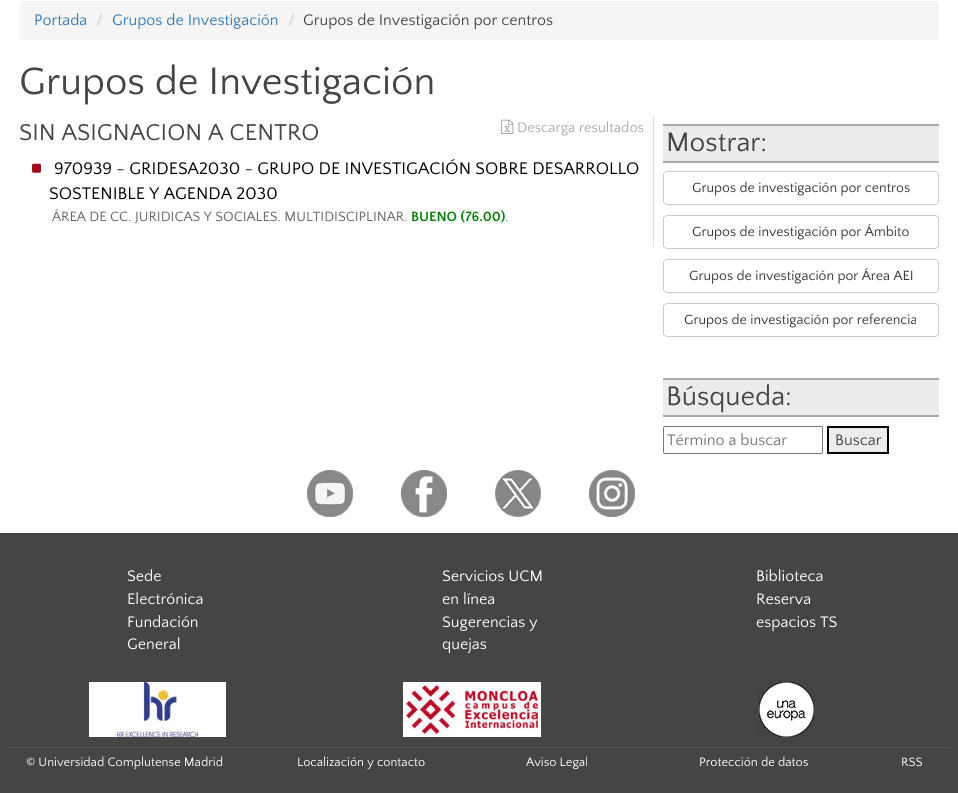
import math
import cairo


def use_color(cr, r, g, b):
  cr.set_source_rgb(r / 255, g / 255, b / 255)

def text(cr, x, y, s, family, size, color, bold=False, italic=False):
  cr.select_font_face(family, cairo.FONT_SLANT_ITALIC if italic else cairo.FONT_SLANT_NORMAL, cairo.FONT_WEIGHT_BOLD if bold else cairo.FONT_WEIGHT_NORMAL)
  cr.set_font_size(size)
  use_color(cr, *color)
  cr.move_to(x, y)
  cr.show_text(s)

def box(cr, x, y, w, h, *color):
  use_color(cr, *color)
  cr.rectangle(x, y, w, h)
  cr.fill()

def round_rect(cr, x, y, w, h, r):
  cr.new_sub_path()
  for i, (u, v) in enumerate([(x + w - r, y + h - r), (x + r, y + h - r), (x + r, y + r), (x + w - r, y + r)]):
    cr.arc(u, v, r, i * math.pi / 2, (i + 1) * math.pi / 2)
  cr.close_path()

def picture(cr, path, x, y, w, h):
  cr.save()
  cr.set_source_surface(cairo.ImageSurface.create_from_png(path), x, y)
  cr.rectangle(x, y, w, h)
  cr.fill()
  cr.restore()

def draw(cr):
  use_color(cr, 255, 255, 255)
  cr.paint()
  use_color(cr, 245, 245, 245)
  round_rect(cr, 19, 1, 920, 39, 4)
  cr.fill()
  box(cr, 653, 116, 1, 131, 221, 221, 221)
  picture(cr, "img_01.png", 501, 119, 13, 16)
  picture(cr, "img_02.png", 32, 163, 10, 10)
  box(cr, 663, 126, 276, 35, 236, 236, 236)
  box(cr, 663, 124, 276, 2, 170, 170, 170)
  box(cr, 663, 161, 276, 2, 170, 170, 170)
  round_rect(cr, 663.5, 171.5, 275, 33, 3.5)
  use_color(cr, 204, 204, 204)
  cr.set_line_width(1)
  cr.stroke()
  round_rect(cr, 663.5, 215.5, 275, 33, 3.5)
  cr.stroke()
  round_rect(cr, 663.5, 259.5, 275, 33, 3.5)
  cr.stroke()
  round_rect(cr, 663.5, 303.5, 275, 33, 3.5)
  cr.stroke()
  box(cr, 663, 380, 276, 35, 236, 236, 236)
  box(cr, 663, 378, 276, 2, 170, 170, 170)
  box(cr, 663, 415, 276, 2, 170, 170, 170)
  round_rect(cr, 663.5, 426.5, 159, 27, 1.5)
  use_color(cr, 118, 118, 118)
  cr.stroke()
  use_color(cr, 236, 236, 236)
  cr.rectangle(828, 427, 60, 26)
  cr.fill_preserve()
  use_color(cr, 0, 0, 0)
  cr.set_line_width(2)
  cr.stroke()
  picture(cr, "img_03.png", 307, 470, 46, 47)
  picture(cr, "img_04.png", 401, 470, 46, 47)
  picture(cr, "img_05.png", 495, 470, 46, 47)
  picture(cr, "img_06.png", 589, 470, 46, 47)
  box(cr, 0, 533, 958, 260, 69, 69, 69)
  picture(cr, "img_07.png", 89, 682, 137, 55)
  picture(cr, "img_08.png", 403, 682, 138, 55)
  picture(cr, "img_09.png", 759, 682, 55, 55)
  box(cr, 7, 747, 944, 1, 83, 83, 83)
  text(cr, 34, 25, "Portada", "Quattrocento Sans", 16, (51, 122, 183))
  text(cr, 96, 25, "/", "Quattrocento Sans", 16, (204, 204, 204))
  text(cr, 112, 25, "Grupos de Investigación", "Quattrocento Sans", 16, (51, 122, 183))
  text(cr, 288, 25, "/", "Quattrocento Sans", 16, (204, 204, 204))
  text(cr, 303, 25, "Grupos de Investigación por centros", "Quattrocento Sans", 16, (69, 69, 69))
  text(cr, 19, 94, "Grupos de Investigación", "Quattrocento Sans", 40, (69, 69, 69))
  text(cr, 19, 140, "SIN ASIGNACION A CENTRO", "Quattrocento Sans", 24, (69, 69, 69))
  text(cr, 517, 132, "Descarga resultados", "Quattrocento Sans", 14.5, (170, 170, 170))
  text(cr, 54, 174, "970939 - GRIDESA2030 - GRUPO DE INVESTIGACIÓN SOBRE DESARROLLO", "Quattrocento Sans", 17.6, (0, 0, 0))
  text(cr, 49, 199, "SOSTENIBLE Y AGENDA 2030", "Quattrocento Sans", 17.6, (0, 0, 0))
  text(cr, 52, 221, "ÁREA DE CC. JURIDICAS Y SOCIALES. MULTIDISCIPLINAR.", "Quattrocento Sans", 14.1, (102, 102, 102))
  text(cr, 411, 221, "BUENO (76.00)", "Quattrocento Sans", 14.1, (0, 128, 0), bold=True)
  text(cr, 505, 221, ".", "Quattrocento Sans", 14.1, (102, 102, 102))
  text(cr, 666, 151, "Mostrar:", "Quattrocento Sans", 28, (69, 69, 69))
  text(cr, 692, 192, "Grupos de investigación por centros", "Quattrocento Sans", 14, (51, 51, 51))
  text(cr, 692, 236, "Grupos de investigación por Ámbito", "Quattrocento Sans", 14, (51, 51, 51))
  text(cr, 689, 280, "Grupos de investigación por Área AEI", "Quattrocento Sans", 14, (51, 51, 51))
  text(cr, 684, 324, "Grupos de investigación por referencia", "Quattrocento Sans", 14, (51, 51, 51))
  text(cr, 666, 405, "Búsqueda:", "Quattrocento Sans", 28, (69, 69, 69))
  text(cr, 667, 445, "Término a buscar", "Quattrocento Sans", 16, (117, 117, 117))
  text(cr, 835, 445, "Buscar", "Quattrocento Sans", 16, (69, 69, 69))
  text(cr, 127, 581, "Sede", "Quattrocento Sans", 16, (255, 255, 255))
  text(cr, 127, 604, "Electrónica", "Quattrocento Sans", 16, (255, 255, 255))
  text(cr, 127, 627, "Fundación", "Quattrocento Sans", 16, (255, 255, 255))
  text(cr, 127, 649, "General", "Quattrocento Sans", 16, (255, 255, 255))
  text(cr, 442, 581, "Servicios UCM", "Quattrocento Sans", 16, (255, 255, 255))
  text(cr, 442, 604, "en línea", "Quattrocento Sans", 16, (255, 255, 255))
  text(cr, 442, 627, "Sugerencias y", "Quattrocento Sans", 16, (255, 255, 255))
  text(cr, 442, 649, "quejas", "Quattrocento Sans", 16, (255, 255, 255))
  text(cr, 756, 581, "Biblioteca", "Quattrocento Sans", 16, (255, 255, 255))
  text(cr, 756, 604, "Reserva", "Quattrocento Sans", 16, (255, 255, 255))
  text(cr, 756, 627, "espacios TS", "Quattrocento Sans", 16, (255, 255, 255))
  text(cr, 26, 766, "© Universidad Complutense Madrid", "Quattrocento Sans", 12.75, (255, 255, 255))
  text(cr, 297, 766, "Localización y contacto", "Quattrocento Sans", 12.75, (255, 255, 255))
  text(cr, 526, 766, "Aviso Legal", "Quattrocento Sans", 12.75, (255, 255, 255))
  text(cr, 699, 766, "Protección de datos", "Quattrocento Sans", 12.75, (255, 255, 255))
  text(cr, 901, 766, "RSS", "Quattrocento Sans", 12.75, (255, 255, 255))


surface = cairo.ImageSurface(cairo.FORMAT_RGB24, 958, 793)
cr = cairo.Context(surface)
options = cairo.FontOptions()
options.set_hint_metrics(cairo.HINT_METRICS_OFF)
options.set_hint_style(cairo.HINT_STYLE_NONE)
cr.set_font_options(options)
cr.set_miter_limit(4)
draw(cr)
surface.write_to_png("out.png")
